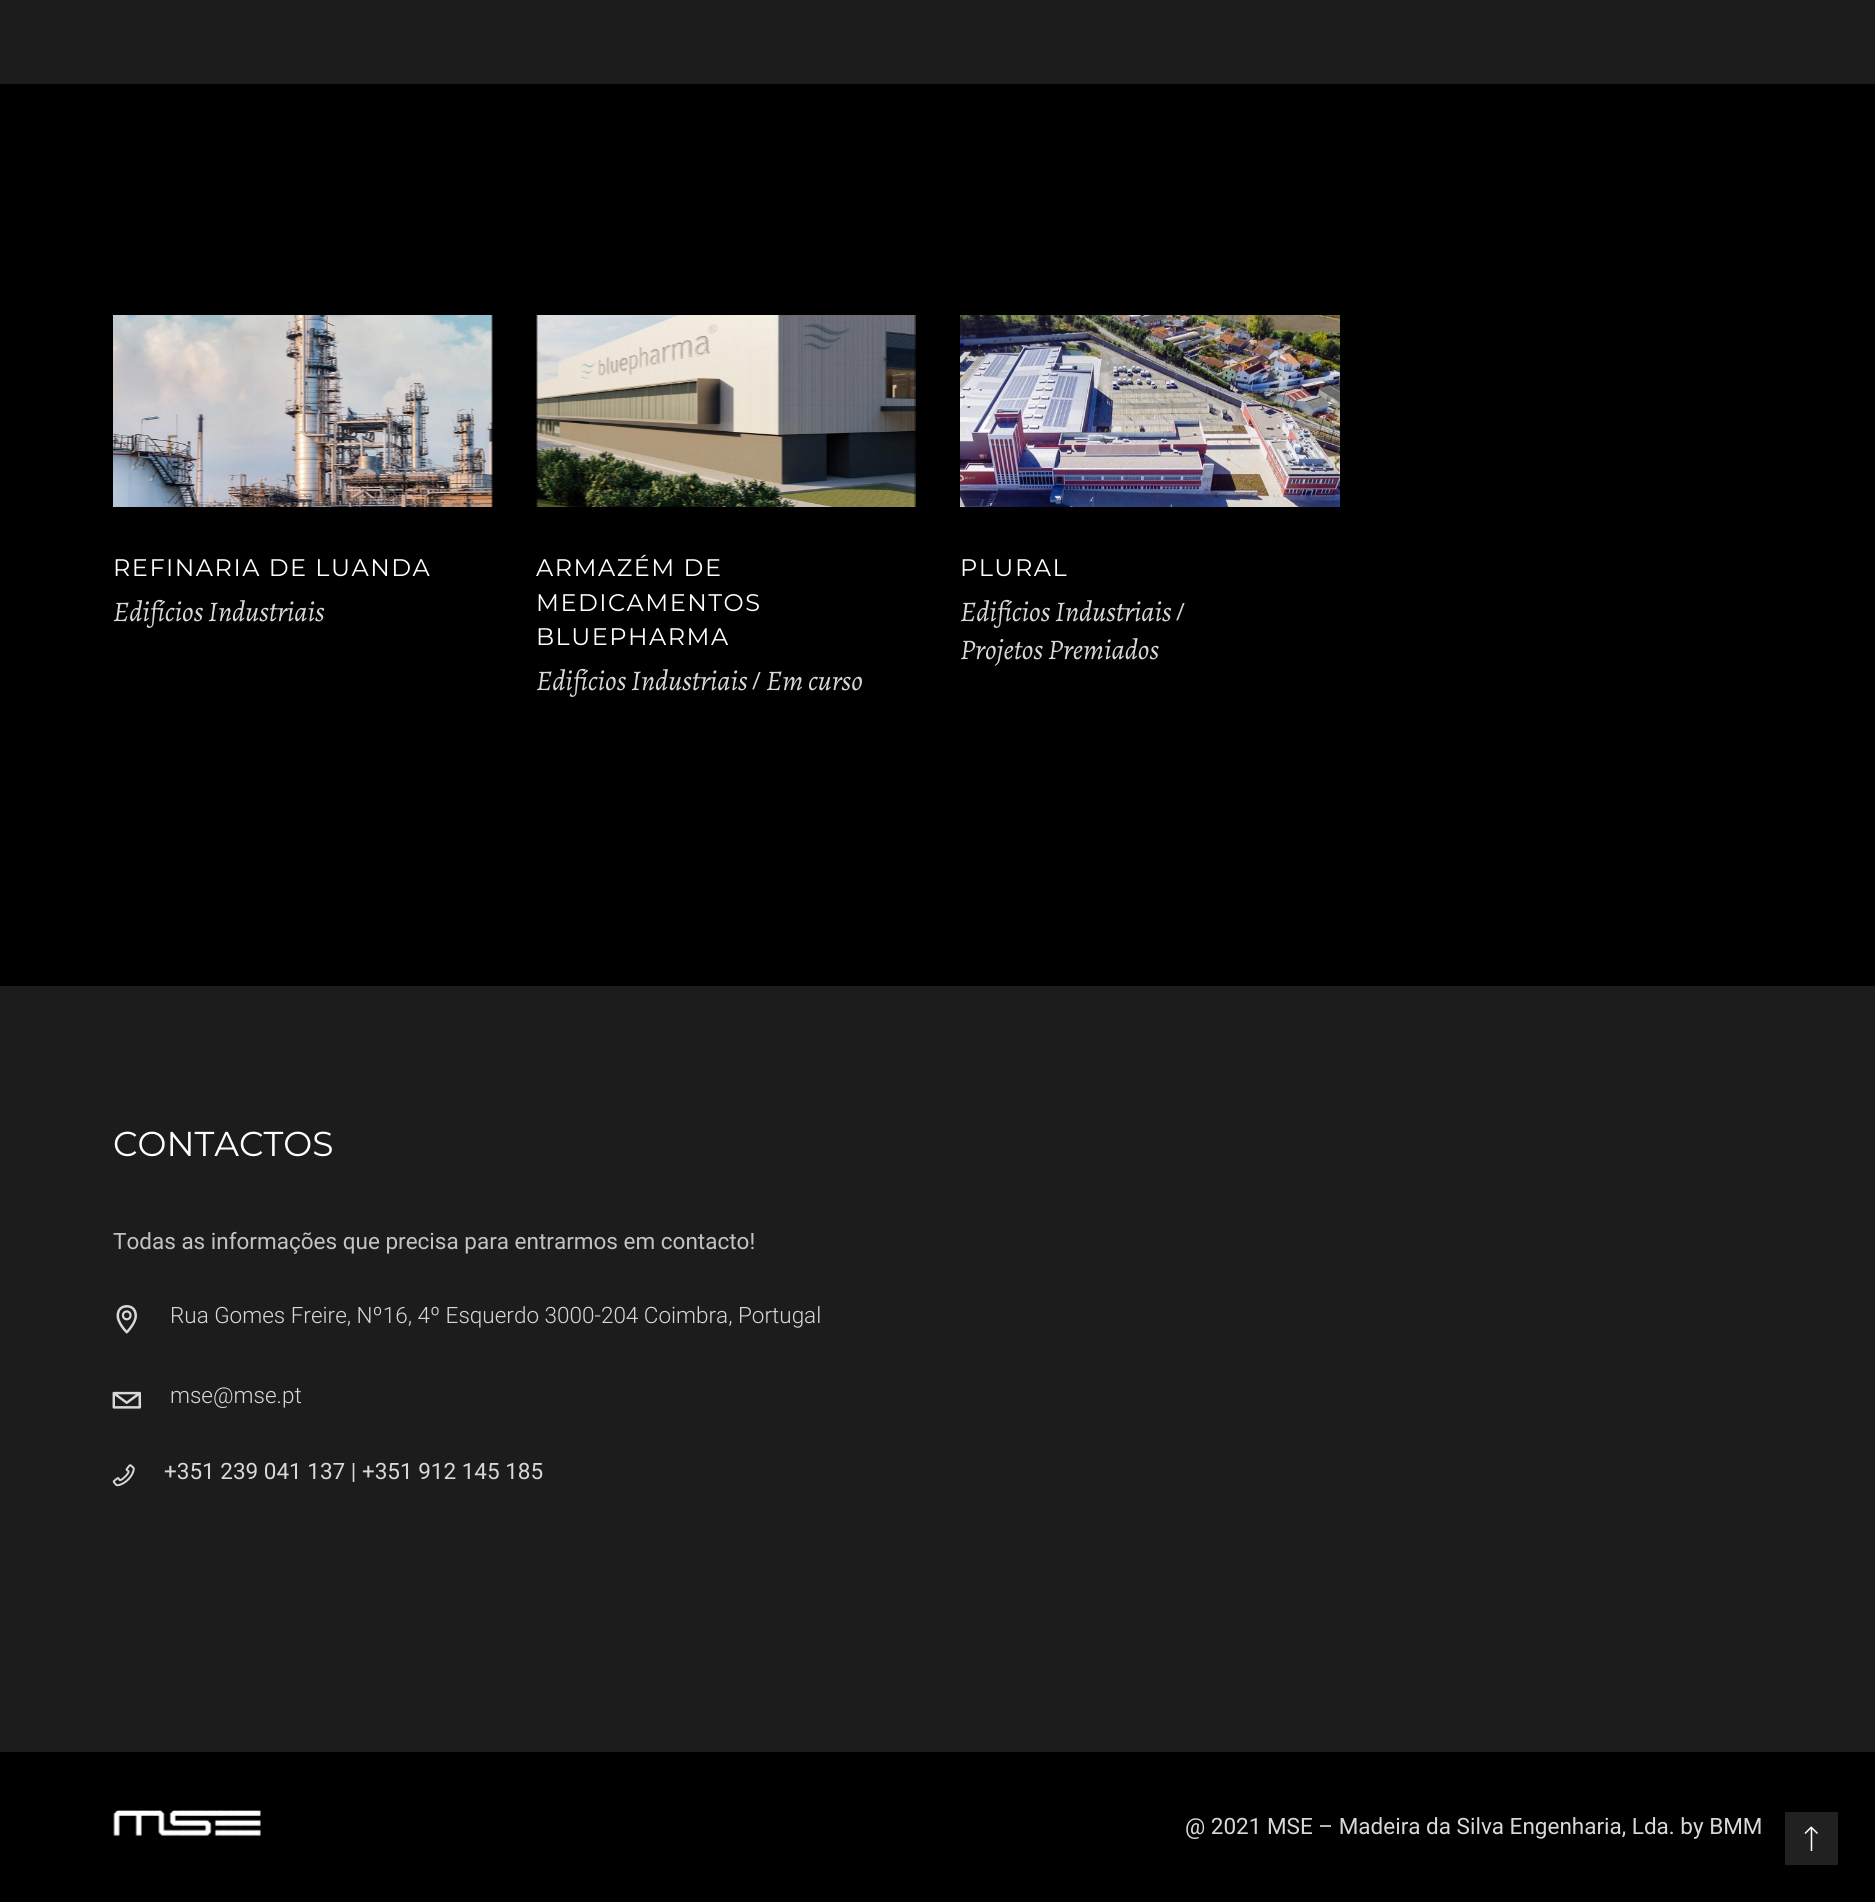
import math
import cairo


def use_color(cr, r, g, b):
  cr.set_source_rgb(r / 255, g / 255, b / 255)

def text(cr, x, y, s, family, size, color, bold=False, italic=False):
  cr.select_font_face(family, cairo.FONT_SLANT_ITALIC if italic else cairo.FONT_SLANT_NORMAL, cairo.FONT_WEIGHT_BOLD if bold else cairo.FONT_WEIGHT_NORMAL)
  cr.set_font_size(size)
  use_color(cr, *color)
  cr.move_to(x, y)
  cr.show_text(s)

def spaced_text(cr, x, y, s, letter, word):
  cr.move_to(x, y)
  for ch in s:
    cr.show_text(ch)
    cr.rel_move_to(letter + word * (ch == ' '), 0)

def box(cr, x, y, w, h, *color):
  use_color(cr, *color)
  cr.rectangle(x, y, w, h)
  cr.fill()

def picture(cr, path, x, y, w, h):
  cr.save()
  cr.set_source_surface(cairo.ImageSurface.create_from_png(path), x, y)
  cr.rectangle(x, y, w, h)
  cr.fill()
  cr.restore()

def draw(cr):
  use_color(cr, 0, 0, 0)
  cr.paint()
  box(cr, 0, 0, 1875, 84, 28, 28, 28)
  picture(cr, "img_01.png", 113, 315, 380, 192)
  picture(cr, "img_02.png", 536, 315, 380, 192)
  picture(cr, "img_03.png", 960, 315, 380, 192)
  box(cr, 0, 986, 1875, 766, 28, 28, 28)
  picture(cr, "img_04.png", 116, 1305, 21, 29)
  picture(cr, "img_05.png", 112, 1391, 30, 18)
  picture(cr, "img_06.png", 112, 1464, 23, 23)
  picture(cr, "img_07.png", 113, 1810, 148, 26)
  box(cr, 1785, 1812, 53, 53, 33, 33, 33)
  cr.new_path()
  cr.move_to(1811.5, 1827.5)
  cr.line_to(1811.5, 1851)
  cr.move_to(1811, 1827)
  cr.line_to(1817.5, 1833.5)
  cr.move_to(1811.5, 1827)
  cr.line_to(1805, 1833.5)
  use_color(cr, 255, 255, 255)
  cr.set_line_width(1.5)
  cr.stroke()
  cr.select_font_face("Montserrat")
  cr.set_font_size(24)
  spaced_text(cr, 113, 576, "REFINARIA DE LUANDA", 1.5, 0)
  text(cr, 113, 621, "Edifícios Industriais", "Alegreya", 28.5, (216, 216, 216), italic=True)
  cr.select_font_face("Montserrat")
  cr.set_font_size(24)
  use_color(cr, 255, 255, 255)
  spaced_text(cr, 536, 576, "ARMAZÉM DE", 1.5, 0)
  spaced_text(cr, 536, 611, "MEDICAMENTOS", 1.5, 0)
  spaced_text(cr, 536, 645, "BLUEPHARMA", 1.5, 0)
  text(cr, 536, 690, "Edifícios Industriais", "Alegreya", 28.5, (216, 216, 216), italic=True)
  text(cr, 752, 688, "/", "Roboto", 22.5, (216, 216, 216))
  text(cr, 766, 690, "Em curso", "Alegreya", 28.5, (216, 216, 216), italic=True)
  cr.select_font_face("Montserrat")
  cr.set_font_size(24)
  use_color(cr, 255, 255, 255)
  spaced_text(cr, 960, 576, "PLURAL", 1.5, 0)
  text(cr, 960, 621, "Edifícios Industriais", "Alegreya", 28.5, (216, 216, 216), italic=True)
  text(cr, 1176, 619, "/", "Roboto", 22.5, (216, 216, 216))
  text(cr, 960, 659, "Projetos Premiados", "Alegreya", 28.5, (216, 216, 216), italic=True)
  text(cr, 113, 1156, "CONTACTOS", "Montserrat", 34.5, (255, 255, 255))
  text(cr, 113, 1249, "Todas as informações que precisa para entrarmos em contacto!", "Roboto", 22.5, (195, 195, 195))
  text(cr, 170, 1323, "Rua Gomes Freire, Nº16, 4º Esquerdo 3000-204 Coimbra, Portugal", "Roboto Light", 22.5, (216, 216, 216))
  text(cr, 170, 1403, "mse@mse.pt", "Roboto Light", 22.5, (216, 216, 216))
  text(cr, 164, 1479, "+351 239 041 137 | +351 912 145 185", "Roboto", 22.5, (216, 216, 216))
  text(cr, 1185, 1834, "@ 2021 MSE – Madeira da Silva Engenharia, Lda. by BMM", "Roboto", 22.5, (216, 216, 216))


surface = cairo.ImageSurface(cairo.FORMAT_RGB24, 1875, 1902)
cr = cairo.Context(surface)
options = cairo.FontOptions()
options.set_hint_metrics(cairo.HINT_METRICS_OFF)
options.set_hint_style(cairo.HINT_STYLE_NONE)
cr.set_font_options(options)
cr.set_miter_limit(4)
draw(cr)
surface.write_to_png("out.png")
